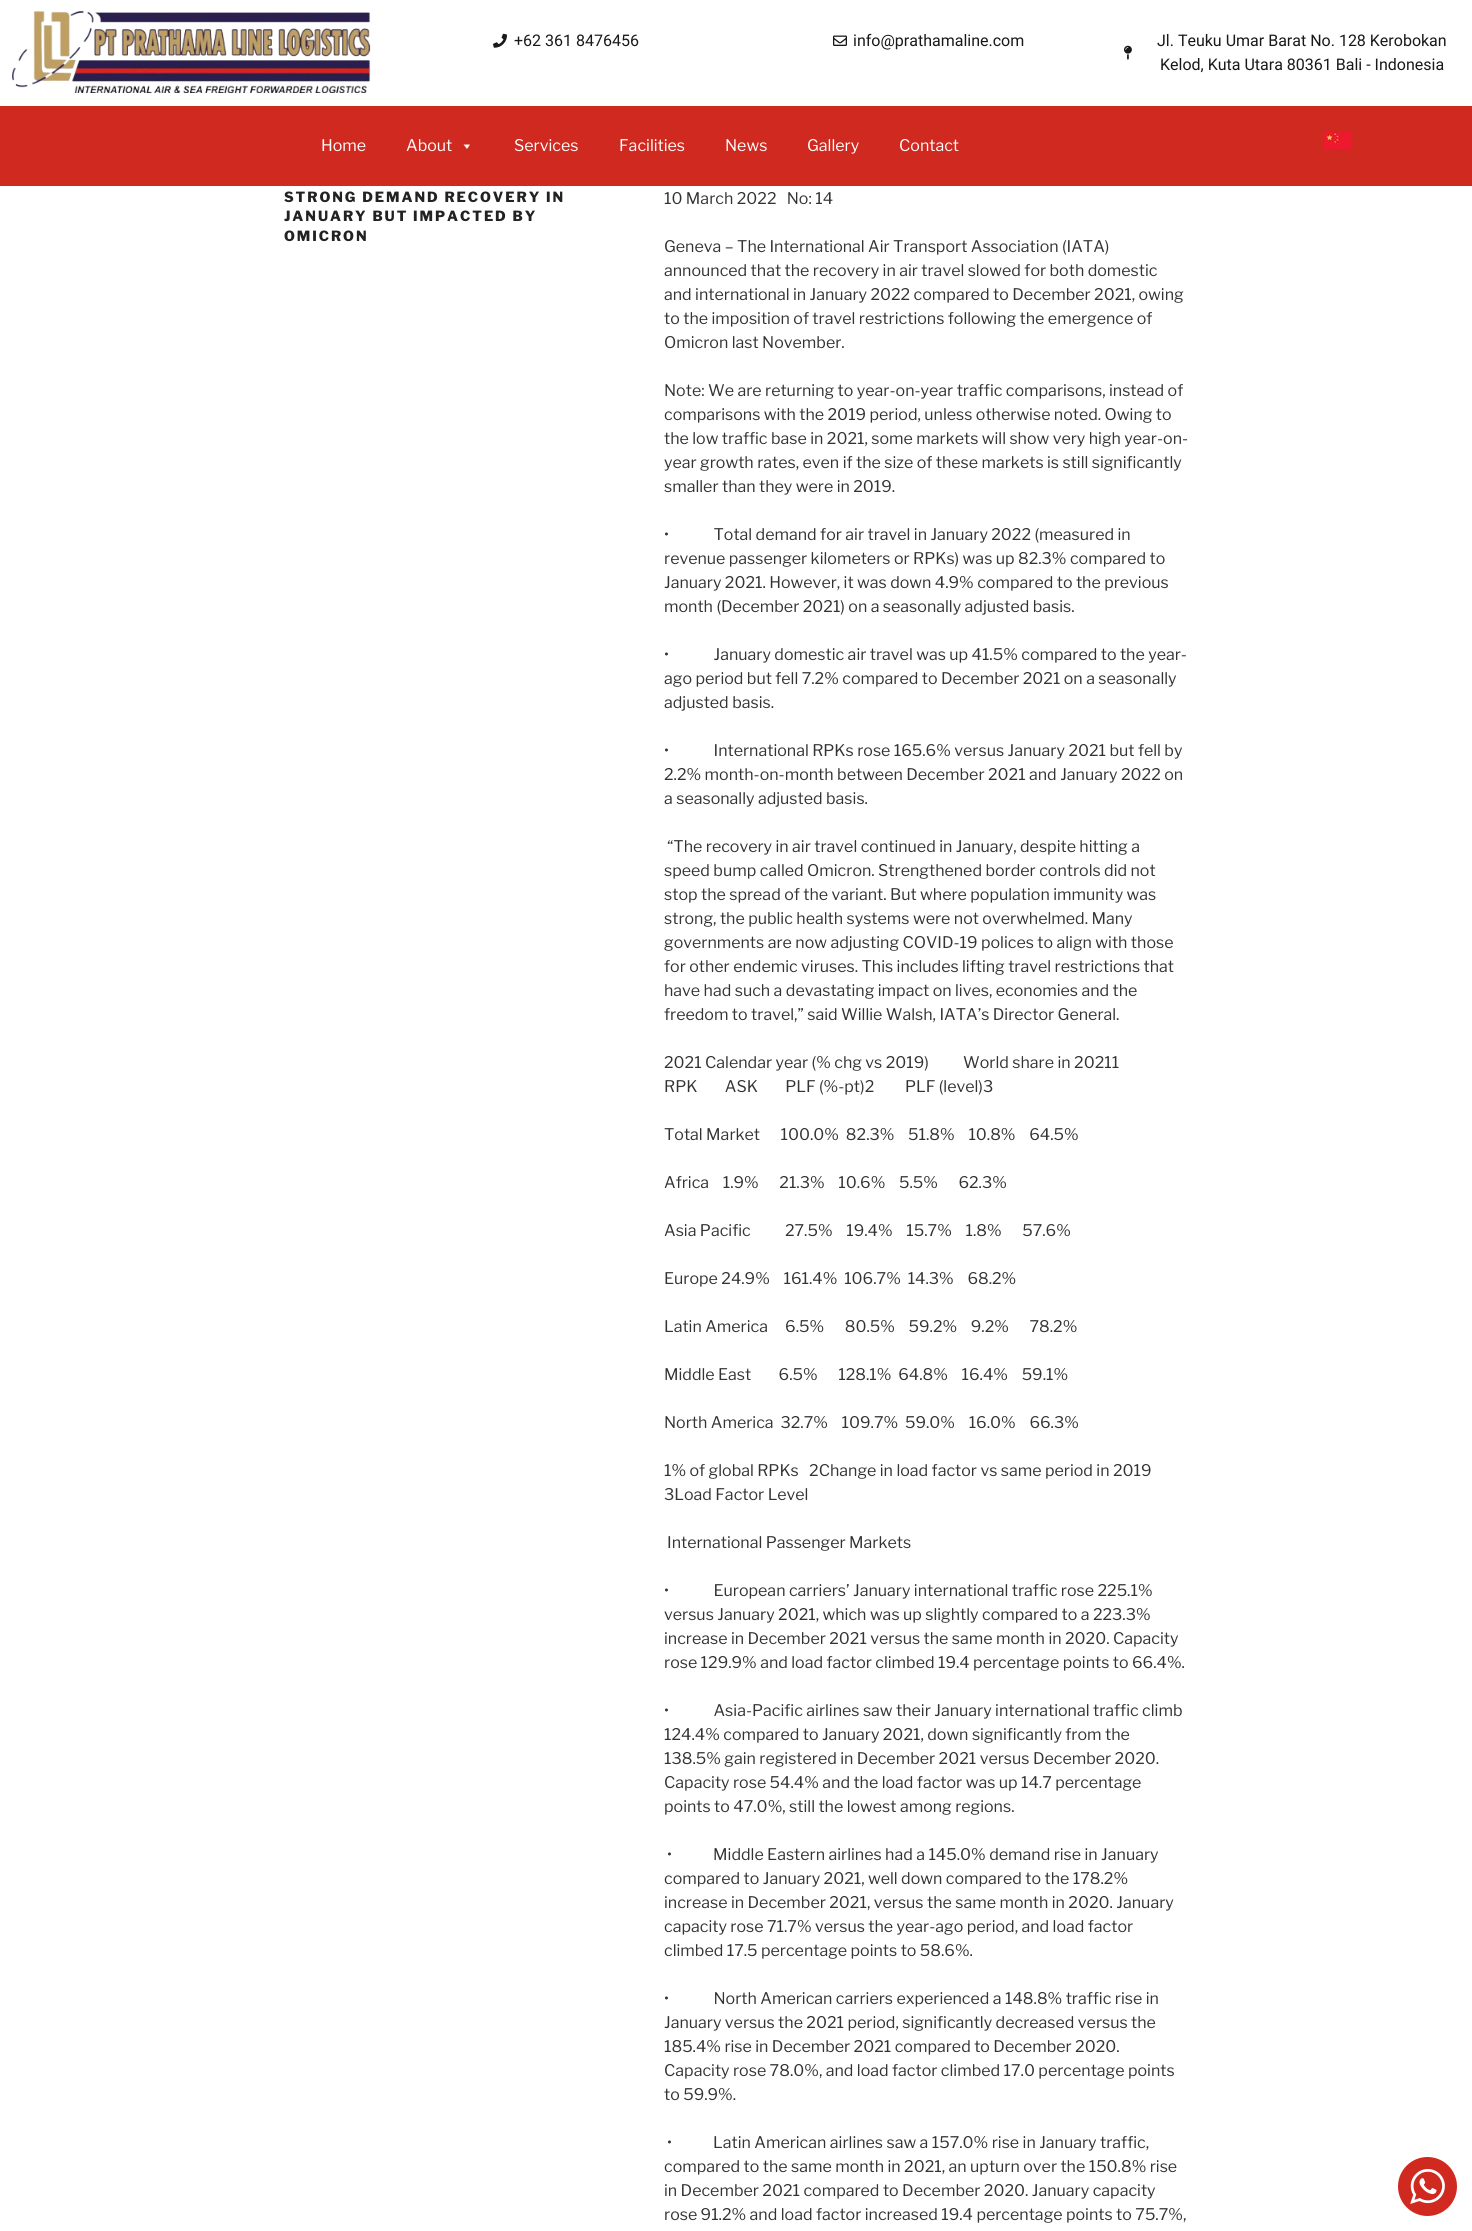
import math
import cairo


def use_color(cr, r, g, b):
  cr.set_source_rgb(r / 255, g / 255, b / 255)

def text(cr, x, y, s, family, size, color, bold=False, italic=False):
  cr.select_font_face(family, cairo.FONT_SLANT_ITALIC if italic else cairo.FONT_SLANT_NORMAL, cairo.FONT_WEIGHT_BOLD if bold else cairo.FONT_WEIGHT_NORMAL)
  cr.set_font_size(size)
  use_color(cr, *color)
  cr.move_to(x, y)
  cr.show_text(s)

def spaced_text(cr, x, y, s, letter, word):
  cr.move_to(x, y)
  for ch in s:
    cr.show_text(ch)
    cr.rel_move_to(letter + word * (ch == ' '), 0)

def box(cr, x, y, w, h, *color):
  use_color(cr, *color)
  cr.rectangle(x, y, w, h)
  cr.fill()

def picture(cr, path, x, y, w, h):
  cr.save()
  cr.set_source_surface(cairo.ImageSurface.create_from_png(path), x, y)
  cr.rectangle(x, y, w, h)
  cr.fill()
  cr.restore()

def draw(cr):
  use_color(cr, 255, 255, 255)
  cr.paint()
  picture(cr, "img_01.png", 12, 10, 359, 83)
  picture(cr, "img_02.png", 493, 33, 14, 15)
  picture(cr, "img_03.png", 833, 35, 14, 11)
  picture(cr, "img_04.png", 1124, 45, 8, 15)
  box(cr, 0, 106, 1472, 80, 207, 41, 32)
  use_color(cr, 255, 255, 255)
  cr.new_path()
  cr.move_to(470, 144.5)
  cr.line_to(467, 149)
  cr.line_to(463.5, 144.5)
  cr.close_path()
  cr.fill()
  picture(cr, "img_05.png", 1324, 132, 28, 18)
  use_color(cr, 207, 41, 32)
  cr.arc(1427.5, 2186.5, 29.5, 0, 2 * math.pi)
  cr.fill()
  picture(cr, "img_06.png", 1410, 2169, 35, 35)
  text(cr, 514, 46, "+62 361 8476456", "Roboto", 16, (25, 25, 25))
  text(cr, 853, 46, "info@prathamaline.com", "Roboto", 16, (25, 25, 25))
  text(cr, 1157, 46, "Jl. Teuku Umar Barat No. 128 Kerobokan", "Roboto", 16, (25, 25, 25))
  text(cr, 1160, 70, "Kelod, Kuta Utara 80361 Bali - Indonesia", "Roboto", 16, (25, 25, 25))
  text(cr, 321, 151, "Home", "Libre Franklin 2 Thin", 16, (255, 255, 255))
  text(cr, 406, 151, "About", "Libre Franklin 2 Thin", 16, (255, 255, 255))
  text(cr, 514, 151, "Services", "Libre Franklin 2 Thin", 16, (255, 255, 255))
  text(cr, 619, 151, "Facilities", "Libre Franklin 2 Thin", 16, (255, 255, 255))
  text(cr, 725, 151, "News", "Libre Franklin 2 Thin", 16, (255, 255, 255))
  text(cr, 807, 151, "Gallery", "Libre Franklin 2 Thin", 16, (255, 255, 255))
  text(cr, 899, 151, "Contact", "Libre Franklin 2 Thin", 16, (255, 255, 255))
  cr.select_font_face("Libre Franklin Thin")
  cr.set_font_size(14)
  use_color(cr, 34, 34, 34)
  spaced_text(cr, 284, 202, "STRONG DEMAND RECOVERY IN", 1.95, 0)
  spaced_text(cr, 284, 221, "JANUARY BUT IMPACTED BY", 1.95, 0)
  spaced_text(cr, 284, 241, "OMICRON", 1.95, 0)
  text(cr, 664, 204, "10 March 2022   No: 14", "Libre Franklin 2 Thin", 16, (51, 51, 51))
  text(cr, 664, 252, "Geneva – The International Air Transport Association (IATA)", "Libre Franklin 2 Thin", 16, (51, 51, 51))
  text(cr, 664, 276, "announced that the recovery in air travel slowed for both domestic", "Libre Franklin 2 Thin", 16, (51, 51, 51))
  text(cr, 664, 300, "and international in January 2022 compared to December 2021, owing", "Libre Franklin 2 Thin", 16, (51, 51, 51))
  text(cr, 664, 324, "to the imposition of travel restrictions following the emergence of", "Libre Franklin 2 Thin", 16, (51, 51, 51))
  text(cr, 664, 348, "Omicron last November.", "Libre Franklin 2 Thin", 16, (51, 51, 51))
  text(cr, 664, 396, "Note: We are returning to year-on-year traffic comparisons, instead of", "Libre Franklin 2 Thin", 16, (51, 51, 51))
  text(cr, 664, 420, "comparisons with the 2019 period, unless otherwise noted. Owing to", "Libre Franklin 2 Thin", 16, (51, 51, 51))
  text(cr, 664, 444, "the low traffic base in 2021, some markets will show very high year-on-", "Libre Franklin 2 Thin", 16, (51, 51, 51))
  text(cr, 664, 468, "year growth rates, even if the size of these markets is still significantly", "Libre Franklin 2 Thin", 16, (51, 51, 51))
  text(cr, 664, 492, "smaller than they were in 2019.", "Libre Franklin 2 Thin", 16, (51, 51, 51))
  text(cr, 664, 540, "•             Total demand for air travel in January 2022 (measured in", "Libre Franklin 2 Thin", 16, (51, 51, 51))
  text(cr, 664, 564, "revenue passenger kilometers or RPKs) was up 82.3% compared to", "Libre Franklin 2 Thin", 16, (51, 51, 51))
  text(cr, 664, 588, "January 2021. However, it was down 4.9% compared to the previous", "Libre Franklin 2 Thin", 16, (51, 51, 51))
  text(cr, 664, 612, "month (December 2021) on a seasonally adjusted basis.", "Libre Franklin 2 Thin", 16, (51, 51, 51))
  text(cr, 664, 660, "•             January domestic air travel was up 41.5% compared to the year-", "Libre Franklin 2 Thin", 16, (51, 51, 51))
  text(cr, 664, 684, "ago period but fell 7.2% compared to December 2021 on a seasonally", "Libre Franklin 2 Thin", 16, (51, 51, 51))
  text(cr, 664, 708, "adjusted basis.", "Libre Franklin 2 Thin", 16, (51, 51, 51))
  text(cr, 664, 756, "•             International RPKs rose 165.6% versus January 2021 but fell by", "Libre Franklin 2 Thin", 16, (51, 51, 51))
  text(cr, 664, 780, "2.2% month-on-month between December 2021 and January 2022 on", "Libre Franklin 2 Thin", 16, (51, 51, 51))
  text(cr, 664, 804, "a seasonally adjusted basis.", "Libre Franklin 2 Thin", 16, (51, 51, 51))
  text(cr, 667, 852, "“The recovery in air travel continued in January, despite hitting a", "Libre Franklin 2 Thin", 16, (51, 51, 51))
  text(cr, 664, 876, "speed bump called Omicron. Strengthened border controls did not", "Libre Franklin 2 Thin", 16, (51, 51, 51))
  text(cr, 664, 900, "stop the spread of the variant. But where population immunity was", "Libre Franklin 2 Thin", 16, (51, 51, 51))
  text(cr, 664, 924, "strong, the public health systems were not overwhelmed. Many", "Libre Franklin 2 Thin", 16, (51, 51, 51))
  text(cr, 664, 948, "governments are now adjusting COVID-19 polices to align with those", "Libre Franklin 2 Thin", 16, (51, 51, 51))
  text(cr, 664, 972, "for other endemic viruses. This includes lifting travel restrictions that", "Libre Franklin 2 Thin", 16, (51, 51, 51))
  text(cr, 664, 996, "have had such a devastating impact on lives, economies and the", "Libre Franklin 2 Thin", 16, (51, 51, 51))
  text(cr, 664, 1020, "freedom to travel,” said Willie Walsh, IATA’s Director General.", "Libre Franklin 2 Thin", 16, (51, 51, 51))
  text(cr, 664, 1068, "2021 Calendar year (% chg vs 2019)          World share in 20211", "Libre Franklin 2 Thin", 16, (51, 51, 51))
  text(cr, 664, 1092, "RPK        ASK        PLF (%-pt)2         PLF (level)3", "Libre Franklin 2 Thin", 16, (51, 51, 51))
  text(cr, 664, 1140, "Total Market      100.0%  82.3%    51.8%    10.8%    64.5%", "Libre Franklin 2 Thin", 16, (51, 51, 51))
  text(cr, 664, 1188, "Africa    1.9%      21.3%    10.6%    5.5%      62.3%", "Libre Franklin 2 Thin", 16, (51, 51, 51))
  text(cr, 664, 1236, "Asia Pacific          27.5%    19.4%    15.7%    1.8%      57.6%", "Libre Franklin 2 Thin", 16, (51, 51, 51))
  text(cr, 664, 1284, "Europe 24.9%    161.4%  106.7%  14.3%    68.2%", "Libre Franklin 2 Thin", 16, (51, 51, 51))
  text(cr, 664, 1332, "Latin America     6.5%      80.5%    59.2%    9.2%      78.2%", "Libre Franklin 2 Thin", 16, (51, 51, 51))
  text(cr, 664, 1380, "Middle East        6.5%      128.1%  64.8%    16.4%    59.1%", "Libre Franklin 2 Thin", 16, (51, 51, 51))
  text(cr, 664, 1428, "North America  32.7%    109.7%  59.0%    16.0%    66.3%", "Libre Franklin 2 Thin", 16, (51, 51, 51))
  text(cr, 664, 1476, "1% of global RPKs   2Change in load factor vs same period in 2019", "Libre Franklin 2 Thin", 16, (51, 51, 51))
  text(cr, 664, 1500, "3Load Factor Level", "Libre Franklin 2 Thin", 16, (51, 51, 51))
  text(cr, 667, 1548, "International Passenger Markets", "Libre Franklin 2 Thin", 16, (51, 51, 51))
  text(cr, 664, 1596, "•             European carriers’ January international traffic rose 225.1%", "Libre Franklin 2 Thin", 16, (51, 51, 51))
  text(cr, 664, 1620, "versus January 2021, which was up slightly compared to a 223.3%", "Libre Franklin 2 Thin", 16, (51, 51, 51))
  text(cr, 664, 1644, "increase in December 2021 versus the same month in 2020. Capacity", "Libre Franklin 2 Thin", 16, (51, 51, 51))
  text(cr, 664, 1668, "rose 129.9% and load factor climbed 19.4 percentage points to 66.4%.", "Libre Franklin 2 Thin", 16, (51, 51, 51))
  text(cr, 664, 1716, "•             Asia-Pacific airlines saw their January international traffic climb", "Libre Franklin 2 Thin", 16, (51, 51, 51))
  text(cr, 664, 1740, "124.4% compared to January 2021, down significantly from the", "Libre Franklin 2 Thin", 16, (51, 51, 51))
  text(cr, 664, 1764, "138.5% gain registered in December 2021 versus December 2020.", "Libre Franklin 2 Thin", 16, (51, 51, 51))
  text(cr, 664, 1788, "Capacity rose 54.4% and the load factor was up 14.7 percentage", "Libre Franklin 2 Thin", 16, (51, 51, 51))
  text(cr, 664, 1812, "points to 47.0%, still the lowest among regions.", "Libre Franklin 2 Thin", 16, (51, 51, 51))
  text(cr, 667, 1860, "•            Middle Eastern airlines had a 145.0% demand rise in January", "Libre Franklin 2 Thin", 16, (51, 51, 51))
  text(cr, 664, 1884, "compared to January 2021, well down compared to the 178.2%", "Libre Franklin 2 Thin", 16, (51, 51, 51))
  text(cr, 664, 1908, "increase in December 2021, versus the same month in 2020. January", "Libre Franklin 2 Thin", 16, (51, 51, 51))
  text(cr, 664, 1932, "capacity rose 71.7% versus the year-ago period, and load factor", "Libre Franklin 2 Thin", 16, (51, 51, 51))
  text(cr, 664, 1956, "climbed 17.5 percentage points to 58.6%.", "Libre Franklin 2 Thin", 16, (51, 51, 51))
  text(cr, 664, 2004, "•             North American carriers experienced a 148.8% traffic rise in", "Libre Franklin 2 Thin", 16, (51, 51, 51))
  text(cr, 664, 2028, "January versus the 2021 period, significantly decreased versus the", "Libre Franklin 2 Thin", 16, (51, 51, 51))
  text(cr, 664, 2052, "185.4% rise in December 2021 compared to December 2020.", "Libre Franklin 2 Thin", 16, (51, 51, 51))
  text(cr, 664, 2076, "Capacity rose 78.0%, and load factor climbed 17.0 percentage points", "Libre Franklin 2 Thin", 16, (51, 51, 51))
  text(cr, 664, 2100, "to 59.9%.", "Libre Franklin 2 Thin", 16, (51, 51, 51))
  text(cr, 667, 2148, "•            Latin American airlines saw a 157.0% rise in January traffic,", "Libre Franklin 2 Thin", 16, (51, 51, 51))
  text(cr, 664, 2172, "compared to the same month in 2021, an upturn over the 150.8% rise", "Libre Franklin 2 Thin", 16, (51, 51, 51))
  text(cr, 664, 2196, "in December 2021 compared to December 2020. January capacity", "Libre Franklin 2 Thin", 16, (51, 51, 51))
  text(cr, 664, 2220, "rose 91.2% and load factor increased 19.4 percentage points to 75.7%,", "Libre Franklin 2 Thin", 16, (51, 51, 51))


surface = cairo.ImageSurface(cairo.FORMAT_RGB24, 1472, 2231)
cr = cairo.Context(surface)
options = cairo.FontOptions()
options.set_hint_metrics(cairo.HINT_METRICS_OFF)
options.set_hint_style(cairo.HINT_STYLE_NONE)
cr.set_font_options(options)
cr.set_miter_limit(4)
draw(cr)
surface.write_to_png("out.png")
